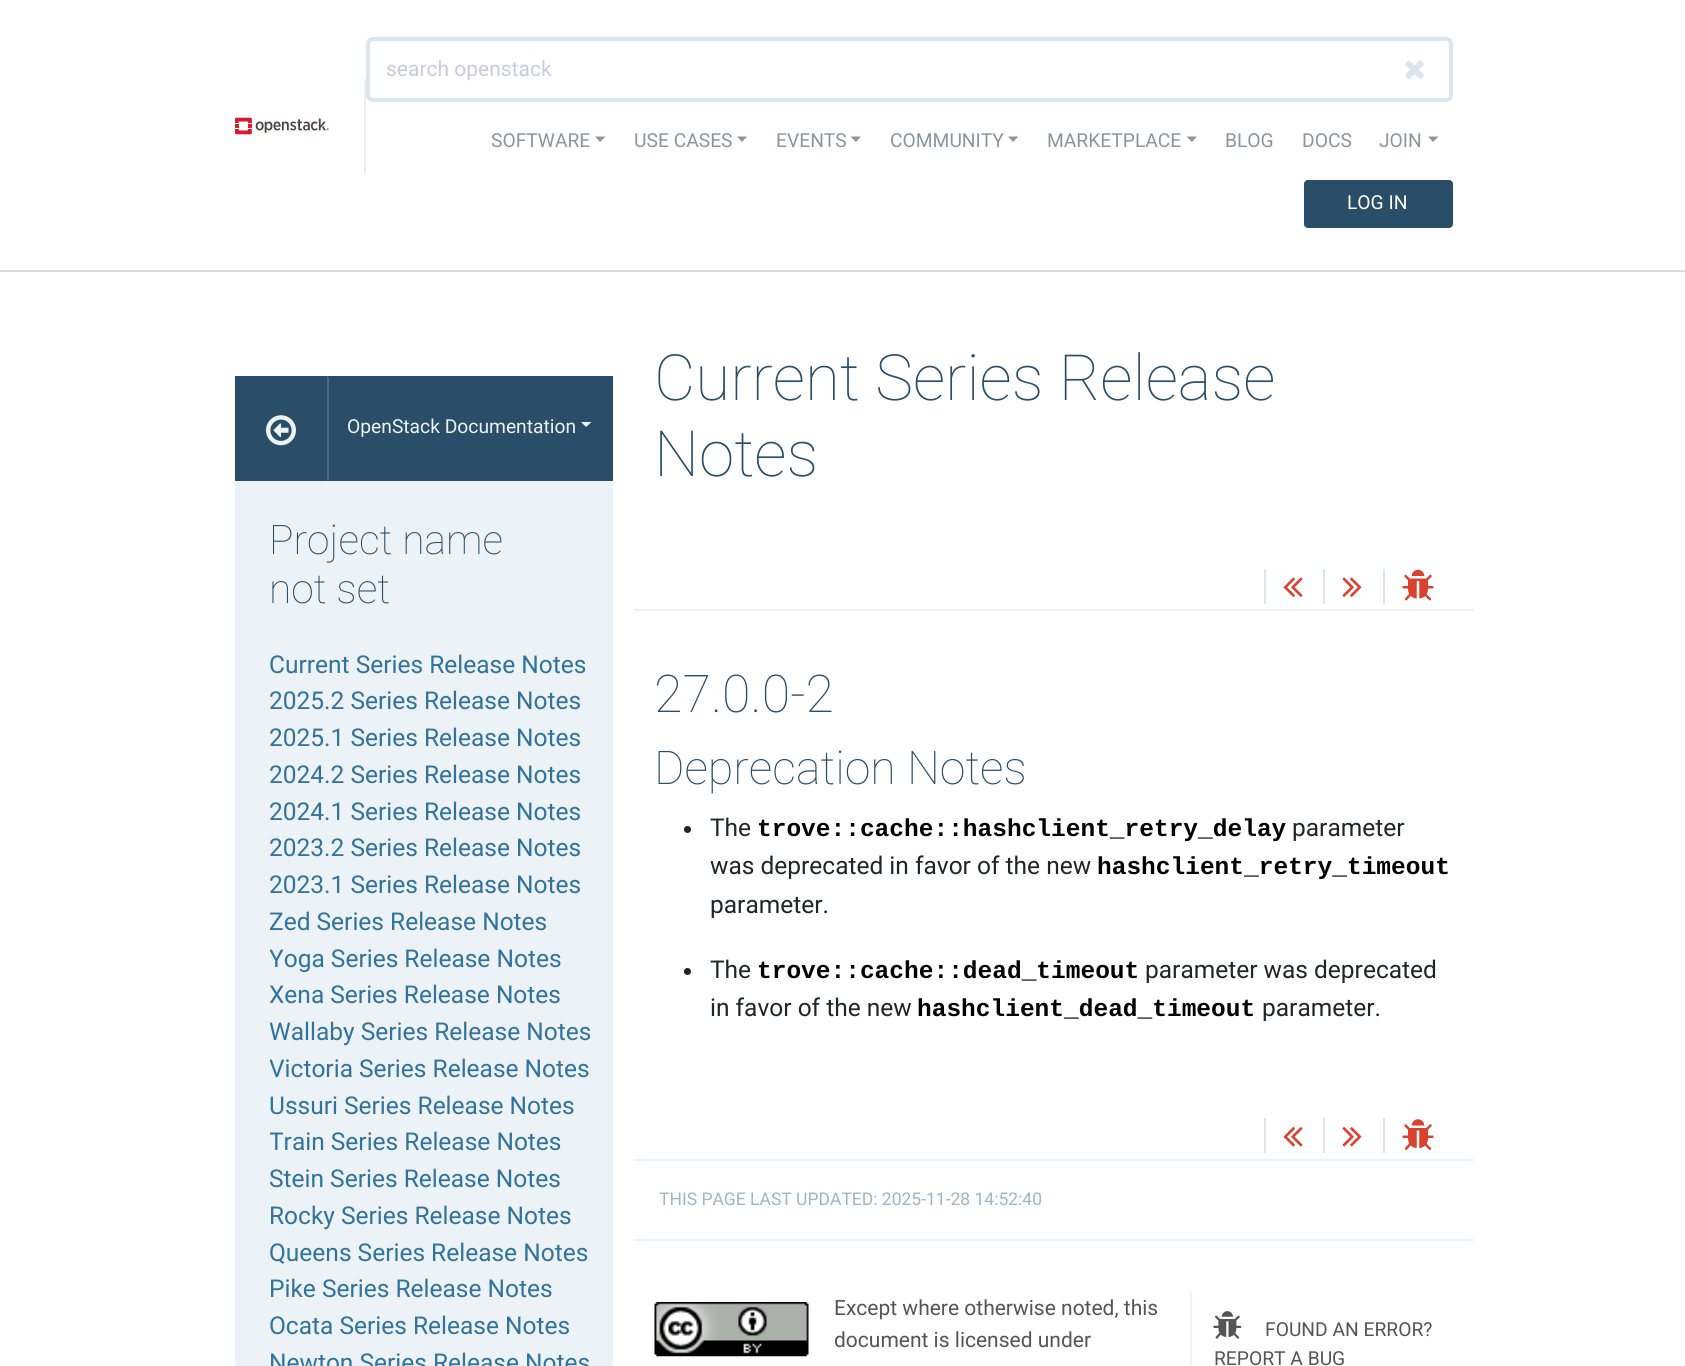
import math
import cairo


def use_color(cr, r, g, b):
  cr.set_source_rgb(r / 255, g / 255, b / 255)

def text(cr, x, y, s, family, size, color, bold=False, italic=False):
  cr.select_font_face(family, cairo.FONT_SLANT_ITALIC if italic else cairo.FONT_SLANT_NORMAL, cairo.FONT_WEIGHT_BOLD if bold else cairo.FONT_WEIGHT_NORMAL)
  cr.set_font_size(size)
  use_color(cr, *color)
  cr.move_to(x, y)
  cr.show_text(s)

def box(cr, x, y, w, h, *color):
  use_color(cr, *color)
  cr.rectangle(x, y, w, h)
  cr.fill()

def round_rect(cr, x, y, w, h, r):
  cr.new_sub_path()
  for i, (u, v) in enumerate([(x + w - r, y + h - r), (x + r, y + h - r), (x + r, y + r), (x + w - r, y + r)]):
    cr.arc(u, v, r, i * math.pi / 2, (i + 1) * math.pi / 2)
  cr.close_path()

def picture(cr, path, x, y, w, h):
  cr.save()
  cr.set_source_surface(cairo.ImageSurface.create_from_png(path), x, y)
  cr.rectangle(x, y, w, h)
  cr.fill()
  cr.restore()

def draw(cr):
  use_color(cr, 255, 255, 255)
  cr.paint()
  box(cr, 0, 270, 1685, 2, 221, 221, 221)
  box(cr, 364, 79, 2, 94, 238, 238, 238)
  picture(cr, "img_01.png", 235, 117, 94, 18)
  round_rect(cr, 368, 39, 1083, 61, 5)
  use_color(cr, 218, 229, 238)
  cr.set_line_width(4)
  cr.stroke()
  picture(cr, "img_02.png", 1405, 60, 19, 19)
  use_color(cr, 138, 149, 158)
  cr.new_path()
  cr.move_to(595, 136.5)
  cr.line_to(605.5, 136.5)
  cr.line_to(600, 142)
  cr.close_path()
  cr.fill()
  cr.new_path()
  cr.move_to(737, 136.5)
  cr.line_to(747, 136.5)
  cr.line_to(742, 142)
  cr.close_path()
  cr.fill()
  cr.new_path()
  cr.move_to(850.5, 136.5)
  cr.line_to(861, 136.5)
  cr.line_to(856, 142)
  cr.close_path()
  cr.fill()
  cr.new_path()
  cr.move_to(1008, 136.5)
  cr.line_to(1018.5, 136.5)
  cr.line_to(1013, 142)
  cr.close_path()
  cr.fill()
  cr.new_path()
  cr.move_to(1186.5, 136.5)
  cr.line_to(1197, 136.5)
  cr.line_to(1192, 142)
  cr.close_path()
  cr.fill()
  cr.new_path()
  cr.move_to(1428, 136.5)
  cr.line_to(1438.5, 136.5)
  cr.line_to(1433, 142)
  cr.close_path()
  cr.fill()
  use_color(cr, 42, 78, 104)
  round_rect(cr, 1304, 180, 149, 48, 4)
  cr.fill()
  box(cr, 235, 376, 378, 105, 42, 78, 104)
  picture(cr, "img_03.png", 266, 415, 30, 31)
  use_color(cr, 73, 110, 138)
  cr.new_path()
  cr.move_to(327, 481)
  cr.line_to(327, 376)
  cr.line_to(329, 378)
  cr.line_to(329, 480)
  cr.close_path()
  cr.fill()
  use_color(cr, 237, 242, 247)
  cr.new_path()
  cr.move_to(581, 422)
  cr.line_to(591.5, 422)
  cr.line_to(586, 427)
  cr.close_path()
  cr.fill()
  box(cr, 235, 481, 378, 885, 237, 242, 247)
  box(cr, 634, 609, 840, 2, 237, 242, 247)
  box(cr, 1264, 569, 2, 35, 218, 229, 238)
  picture(cr, "img_04.png", 1283, 577, 20, 20)
  box(cr, 1323, 569, 2, 35, 218, 229, 238)
  picture(cr, "img_05.png", 1342, 577, 20, 20)
  box(cr, 1383, 569, 2, 35, 218, 229, 238)
  picture(cr, "img_06.png", 1402, 569, 32, 32)
  use_color(cr, 33, 37, 41)
  cr.arc(687.5, 829.5, 3.5, 0, 2 * math.pi)
  cr.fill()
  cr.arc(687.5, 971.5, 3.5, 0, 2 * math.pi)
  cr.fill()
  box(cr, 1264, 1118, 2, 35, 218, 229, 238)
  picture(cr, "img_07.png", 1283, 1127, 20, 20)
  box(cr, 1323, 1118, 2, 35, 218, 229, 238)
  picture(cr, "img_08.png", 1342, 1127, 20, 20)
  box(cr, 1383, 1118, 2, 35, 218, 229, 238)
  picture(cr, "img_09.png", 1402, 1119, 32, 31)
  box(cr, 634, 1159, 840, 2, 237, 242, 247)
  box(cr, 634, 1239, 840, 2, 237, 242, 247)
  box(cr, 1190, 1293, 2, 73, 237, 242, 247)
  picture(cr, "img_10.png", 654, 1302, 155, 55)
  picture(cr, "img_11.png", 1213, 1311, 29, 28)
  text(cr, 386, 76, "search openstack", "Roboto", 21, (199, 202, 224))
  text(cr, 491, 147, "SOFTWARE", "Roboto", 19.25, (138, 149, 158))
  text(cr, 634, 147, "USE CASES", "Roboto", 19.25, (138, 149, 158))
  text(cr, 776, 147, "EVENTS", "Roboto", 19.25, (138, 149, 158))
  text(cr, 890, 147, "COMMUNITY", "Roboto", 19.25, (138, 149, 158))
  text(cr, 1047, 147, "MARKETPLACE", "Roboto", 19.25, (138, 149, 158))
  text(cr, 1225, 147, "BLOG", "Roboto", 19.25, (138, 149, 158))
  text(cr, 1302, 147, "DOCS", "Roboto", 19.25, (138, 149, 158))
  text(cr, 1379, 147, "JOIN", "Roboto", 19.25, (138, 149, 158))
  text(cr, 1347, 209, "LOG IN", "Roboto", 19.25, (255, 255, 255))
  text(cr, 347, 433, "OpenStack Documentation", "Roboto", 19.25, (237, 242, 247))
  text(cr, 269, 554, "Project name", "Roboto Thin", 40.75, (42, 78, 104))
  text(cr, 269, 603, "not set", "Roboto Thin", 40.75, (42, 78, 104))
  text(cr, 269, 673, "Current Series Release Notes", "Roboto", 24.5, (48, 115, 156))
  text(cr, 269, 709, "2025.2 Series Release Notes", "Roboto", 24.5, (48, 115, 156))
  text(cr, 269, 746, "2025.1 Series Release Notes", "Roboto", 24.5, (48, 115, 156))
  text(cr, 269, 783, "2024.2 Series Release Notes", "Roboto", 24.5, (48, 115, 156))
  text(cr, 269, 820, "2024.1 Series Release Notes", "Roboto", 24.5, (48, 115, 156))
  text(cr, 269, 856, "2023.2 Series Release Notes", "Roboto", 24.5, (48, 115, 156))
  text(cr, 269, 893, "2023.1 Series Release Notes", "Roboto", 24.5, (48, 115, 156))
  cr.save()
  cr.rectangle(270, 903, 325, 37)
  cr.clip()
  text(cr, 269, 930, "Zed Series Release Notes", "Roboto", 24.5, (48, 115, 156))
  cr.restore()
  cr.save()
  cr.rectangle(270, 940, 325, 37)
  cr.clip()
  text(cr, 269, 967, "Yoga Series Release Notes", "Roboto", 24.5, (48, 115, 156))
  cr.restore()
  cr.save()
  cr.rectangle(270, 977, 325, 36)
  cr.clip()
  text(cr, 269, 1003, "Xena Series Release Notes", "Roboto", 24.5, (48, 115, 156))
  cr.restore()
  cr.save()
  cr.rectangle(270, 1013, 325, 37)
  cr.clip()
  text(cr, 269, 1040, "Wallaby Series Release Notes", "Roboto", 24.5, (48, 115, 156))
  cr.restore()
  cr.save()
  cr.rectangle(270, 1050, 325, 37)
  cr.clip()
  text(cr, 269, 1077, "Victoria Series Release Notes", "Roboto", 24.5, (48, 115, 156))
  cr.restore()
  text(cr, 269, 1114, "Ussuri Series Release Notes", "Roboto", 24.5, (48, 115, 156))
  cr.save()
  cr.rectangle(270, 1124, 325, 36)
  cr.clip()
  text(cr, 269, 1150, "Train Series Release Notes", "Roboto", 24.5, (48, 115, 156))
  cr.restore()
  text(cr, 269, 1187, "Stein Series Release Notes", "Roboto", 24.5, (48, 115, 156))
  text(cr, 269, 1224, "Rocky Series Release Notes", "Roboto", 24.5, (48, 115, 156))
  text(cr, 269, 1261, "Queens Series Release Notes", "Roboto", 24.5, (48, 115, 156))
  text(cr, 269, 1297, "Pike Series Release Notes", "Roboto", 24.5, (48, 115, 156))
  text(cr, 269, 1334, "Ocata Series Release Notes", "Roboto", 24.5, (48, 115, 156))
  text(cr, 269, 1371, "Newton Series Release Notes", "Roboto", 24.5, (48, 115, 156))
  text(cr, 654, 400, "Current Series Release", "Roboto Thin", 63.75, (42, 78, 104))
  text(cr, 654, 476, "Notes", "Roboto Thin", 63.75, (42, 78, 104))
  text(cr, 654, 712, "27.0.0-2", "Roboto Thin", 52, (42, 78, 104))
  text(cr, 654, 784, "Deprecation Notes", "Roboto Thin", 46.5, (42, 78, 104))
  text(cr, 710, 836, "The", "Roboto", 24.5, (33, 37, 41))
  text(cr, 757, 836, "trove::cache::hashclient_retry_delay", "Liberation Mono", 24.5, (0, 0, 0), bold=True)
  text(cr, 1292, 836, "parameter", "Roboto", 24.5, (33, 37, 41))
  text(cr, 710, 874, "was deprecated in favor of the new", "Roboto", 24.5, (33, 37, 41))
  text(cr, 1097, 874, "hashclient_retry_timeout", "Liberation Mono", 24.5, (0, 0, 0), bold=True)
  text(cr, 710, 913, "parameter.", "Roboto", 24.5, (33, 37, 41))
  text(cr, 710, 978, "The", "Roboto", 24.5, (33, 37, 41))
  text(cr, 757, 978, "trove::cache::dead_timeout", "Liberation Mono", 24.5, (0, 0, 0), bold=True)
  text(cr, 1145, 978, "parameter was deprecated", "Roboto", 24.5, (33, 37, 41))
  text(cr, 710, 1016, "in favor of the new", "Roboto", 24.5, (33, 37, 41))
  text(cr, 917, 1016, "hashclient_dead_timeout", "Liberation Mono", 24.5, (0, 0, 0), bold=True)
  text(cr, 1262, 1016, "parameter.", "Roboto", 24.5, (33, 37, 41))
  text(cr, 659, 1205, "THIS PAGE LAST UPDATED: 2025-11-28 14:52:40", "Roboto", 17.5, (158, 181, 195))
  text(cr, 834, 1315, "Except where otherwise noted, this", "Roboto", 21, (85, 85, 85))
  text(cr, 834, 1347, "document is licensed under", "Roboto", 21, (85, 85, 85))
  text(cr, 1265, 1336, "FOUND AN ERROR?", "Roboto", 19.25, (85, 85, 85))
  text(cr, 1214, 1365, "REPORT A BUG", "Roboto", 19.25, (85, 85, 85))


surface = cairo.ImageSurface(cairo.FORMAT_RGB24, 1685, 1366)
cr = cairo.Context(surface)
options = cairo.FontOptions()
options.set_hint_metrics(cairo.HINT_METRICS_OFF)
options.set_hint_style(cairo.HINT_STYLE_NONE)
cr.set_font_options(options)
cr.set_miter_limit(4)
draw(cr)
surface.write_to_png("out.png")
